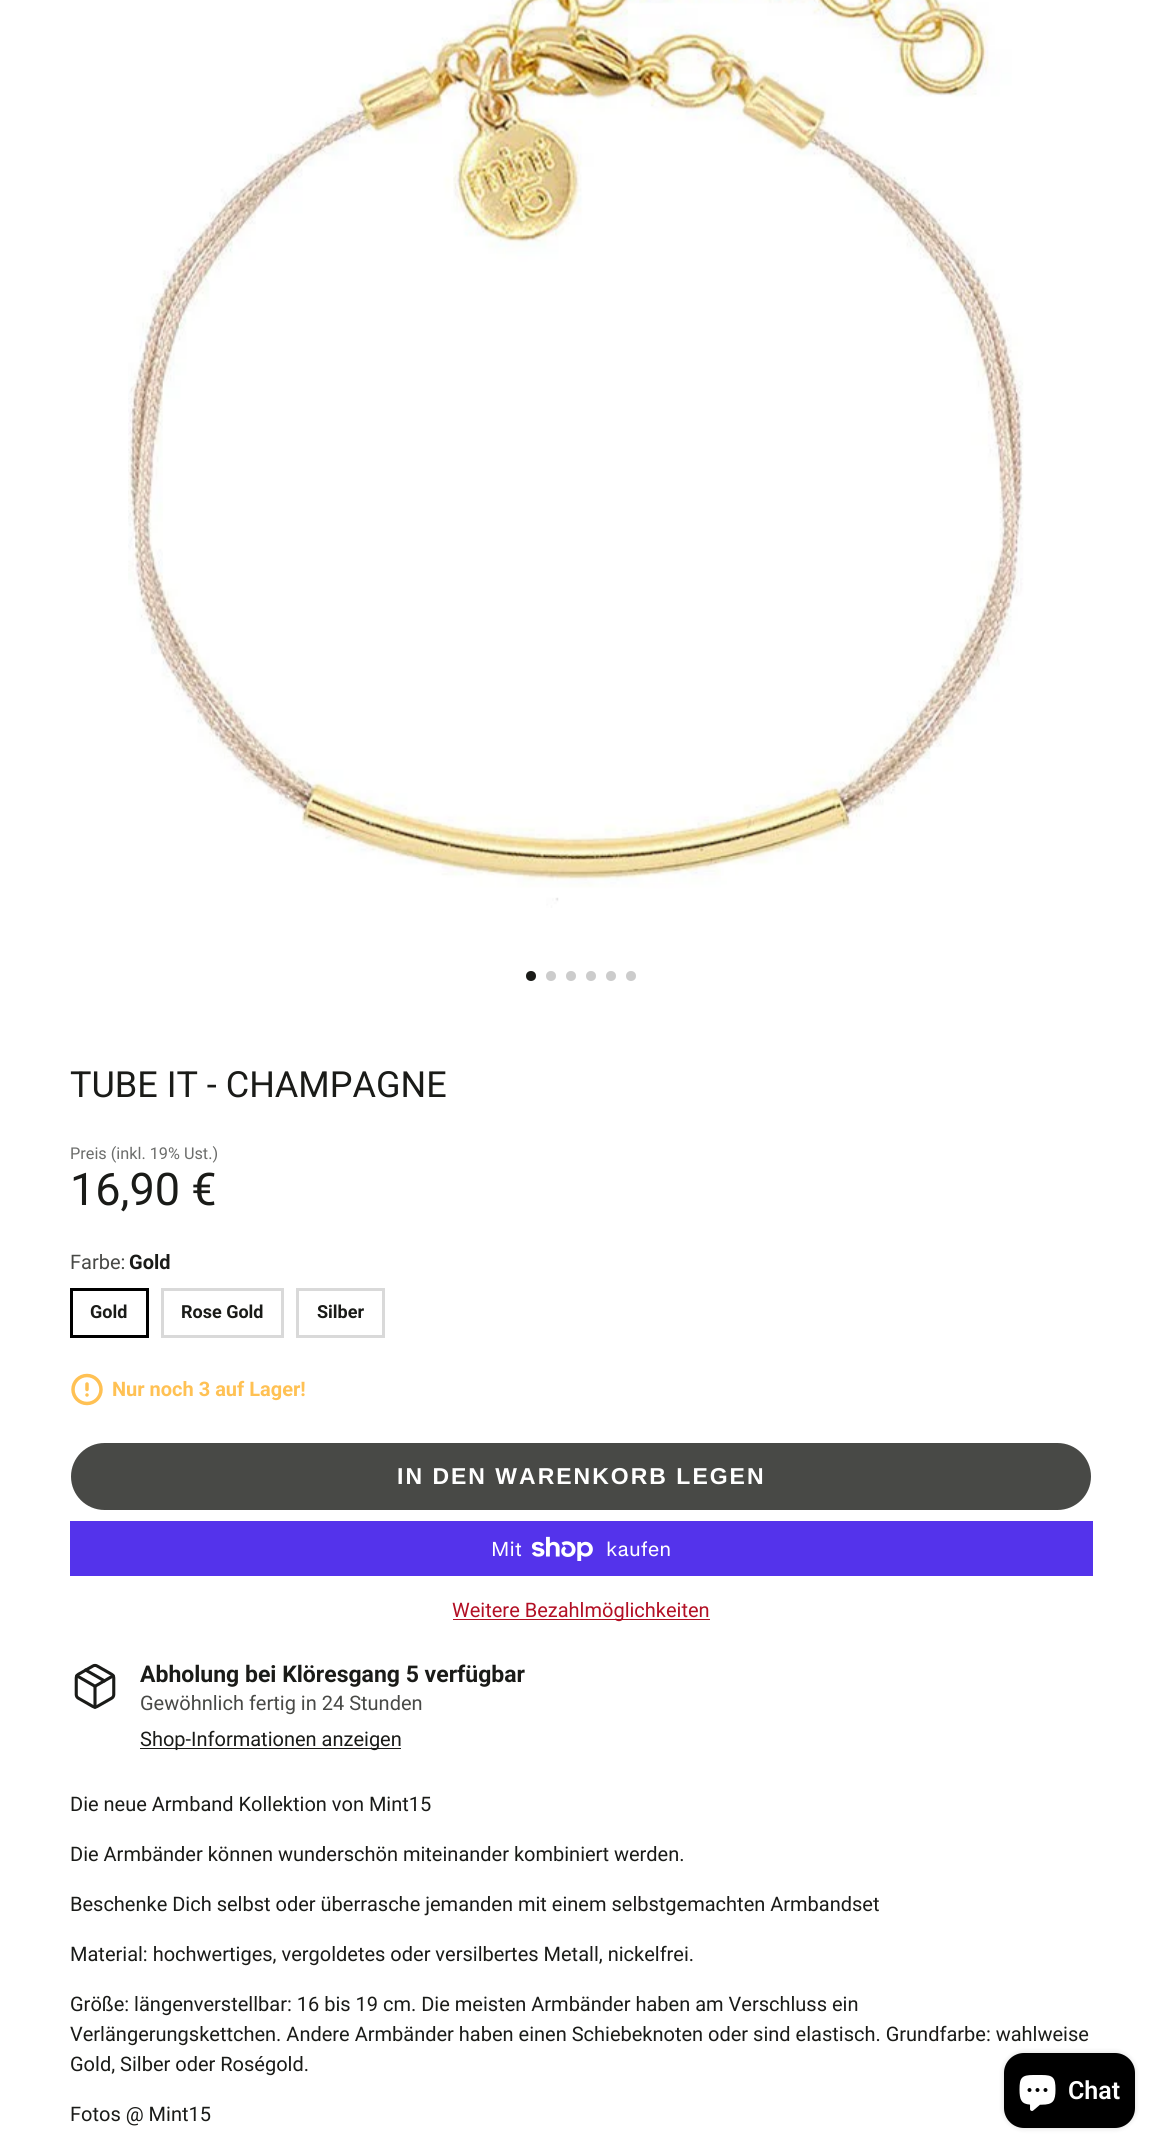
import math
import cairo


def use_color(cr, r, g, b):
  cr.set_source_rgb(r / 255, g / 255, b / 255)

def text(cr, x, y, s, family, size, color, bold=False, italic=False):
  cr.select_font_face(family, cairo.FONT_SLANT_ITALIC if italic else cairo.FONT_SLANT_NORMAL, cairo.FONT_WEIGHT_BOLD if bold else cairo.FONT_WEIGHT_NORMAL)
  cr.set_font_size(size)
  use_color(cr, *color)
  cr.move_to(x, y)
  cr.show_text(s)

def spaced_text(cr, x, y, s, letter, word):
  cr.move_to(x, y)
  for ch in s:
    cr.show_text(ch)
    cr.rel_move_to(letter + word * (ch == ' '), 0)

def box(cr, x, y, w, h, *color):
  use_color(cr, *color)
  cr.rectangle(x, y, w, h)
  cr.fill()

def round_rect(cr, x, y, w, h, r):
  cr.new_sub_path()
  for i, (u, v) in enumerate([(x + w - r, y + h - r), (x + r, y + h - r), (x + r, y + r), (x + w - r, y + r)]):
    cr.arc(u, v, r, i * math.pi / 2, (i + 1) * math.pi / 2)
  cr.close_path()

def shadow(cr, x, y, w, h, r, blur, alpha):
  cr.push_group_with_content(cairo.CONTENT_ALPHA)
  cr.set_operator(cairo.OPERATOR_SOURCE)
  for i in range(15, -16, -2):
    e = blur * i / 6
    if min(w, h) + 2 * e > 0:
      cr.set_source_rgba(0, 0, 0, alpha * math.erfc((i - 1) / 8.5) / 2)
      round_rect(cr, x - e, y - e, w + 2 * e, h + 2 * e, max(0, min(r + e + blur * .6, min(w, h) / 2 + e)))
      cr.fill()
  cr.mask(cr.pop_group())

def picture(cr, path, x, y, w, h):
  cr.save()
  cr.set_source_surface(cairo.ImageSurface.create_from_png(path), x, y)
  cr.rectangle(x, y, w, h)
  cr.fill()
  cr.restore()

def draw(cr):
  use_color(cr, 255, 255, 255)
  cr.paint()
  picture(cr, "img_01.png", 128, 0, 896, 908)
  use_color(cr, 26, 27, 24)
  cr.arc(531, 976, 5, 0, 2 * math.pi)
  cr.fill()
  use_color(cr, 204, 204, 204)
  cr.arc(551, 976, 5, 0, 2 * math.pi)
  cr.fill()
  cr.arc(571, 976, 5, 0, 2 * math.pi)
  cr.fill()
  cr.arc(591, 976, 5, 0, 2 * math.pi)
  cr.fill()
  cr.arc(611, 976, 5, 0, 2 * math.pi)
  cr.fill()
  cr.arc(631, 976, 5, 0, 2 * math.pi)
  cr.fill()
  cr.rectangle(71.5, 1289.5, 76, 47)
  use_color(cr, 0, 0, 0)
  cr.set_line_width(3)
  cr.stroke()
  cr.rectangle(162.5, 1289.5, 120, 47)
  use_color(cr, 217, 217, 217)
  cr.stroke()
  cr.rectangle(297.5, 1289.5, 86, 47)
  cr.stroke()
  cr.arc(87, 1389.5, 14, 0, 2 * math.pi)
  use_color(cr, 255, 193, 84)
  cr.set_line_width(3.5)
  cr.stroke()
  cr.new_path()
  cr.move_to(87, 1384)
  cr.line_to(87, 1389.5)
  cr.move_to(87, 1395)
  cr.line_to(87, 1395)
  cr.set_line_cap(cairo.LINE_CAP_ROUND)
  cr.set_line_join(cairo.LINE_JOIN_ROUND)
  cr.stroke()
  use_color(cr, 72, 73, 70)
  round_rect(cr, 71, 1443, 1020, 67, 33.5)
  cr.fill()
  box(cr, 70, 1521, 1023, 55, 84, 51, 235)
  picture(cr, "img_02.png", 531, 1536, 62, 25)
  box(cr, 453, 1619, 257, 1, 178, 15, 36)
  picture(cr, "img_03.png", 74, 1663, 42, 46)
  box(cr, 140, 1748, 261, 1, 26, 27, 24)
  use_color(cr, 0, 0, 0)
  shadow(cr, 1004, 2053, 131, 75, 20, 3, 0.15)
  use_color(cr, 0, 0, 0)
  round_rect(cr, 1004, 2053, 131, 75, 20)
  cr.fill()
  picture(cr, "img_04.png", 1019, 2075, 37, 36)
  text(cr, 70, 1097, "TUBE IT - CHAMPAGNE", "Roboto", 36, (26, 27, 24))
  text(cr, 70, 1159, "Preis (inkl. 19% Ust.)", "Roboto", 16.25, (108, 109, 107))
  text(cr, 70, 1205, "16,90 €", "Roboto", 45, (26, 27, 24))
  text(cr, 70, 1269, "Farbe:", "Roboto", 20, (72, 73, 70))
  text(cr, 129, 1269, "Gold", "Roboto", 20, (26, 27, 24), bold=True)
  text(cr, 90, 1318, "Gold", "Roboto", 18, (26, 27, 24), bold=True)
  text(cr, 181, 1318, "Rose Gold", "Roboto", 18, (26, 27, 24), bold=True)
  text(cr, 317, 1318, "Silber", "Roboto", 18, (26, 27, 24), bold=True)
  text(cr, 112, 1396, "Nur noch 3 auf Lager!", "Roboto", 20, (255, 193, 84), bold=True)
  cr.select_font_face("Liberation Sans", cairo.FONT_SLANT_NORMAL, cairo.FONT_WEIGHT_BOLD)
  cr.set_font_size(23)
  use_color(cr, 255, 255, 255)
  spaced_text(cr, 397, 1484, "IN DEN WARENKORB LEGEN", 2, 0)
  text(cr, 491, 1556, "Mit", "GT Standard", 20, (255, 255, 255))
  text(cr, 606, 1556, "kaufen", "GT Standard", 20, (255, 255, 255))
  text(cr, 452, 1617, "Weitere Bezahlmöglichkeiten", "Roboto", 20, (178, 15, 36))
  text(cr, 140, 1682, "Abholung bei Klöresgang 5 verfügbar", "Roboto", 23, (26, 27, 24), bold=True)
  text(cr, 140, 1710, "Gewöhnlich fertig in 24 Stunden", "Roboto", 20, (72, 73, 70))
  text(cr, 140, 1746, "Shop-Informationen anzeigen", "Roboto", 20, (26, 27, 24))
  text(cr, 70, 1811, "Die neue Armband Kollektion von Mint15", "Roboto", 20, (26, 27, 24))
  text(cr, 70, 1861, "Die Armbänder können wunderschön miteinander kombiniert werden.", "Roboto", 20, (26, 27, 24))
  text(cr, 70, 1911, "Beschenke Dich selbst oder überrasche jemanden mit einem selbstgemachten Armbandset", "Roboto", 20, (26, 27, 24))
  text(cr, 70, 1961, "Material: hochwertiges, vergoldetes oder versilbertes Metall, nickelfrei.", "Roboto", 20, (26, 27, 24))
  text(cr, 70, 2011, "Größe: längenverstellbar: 16 bis 19 cm. Die meisten Armbänder haben am Verschluss ein", "Roboto", 20, (26, 27, 24))
  text(cr, 70, 2041, "Verlängerungskettchen. Andere Armbänder haben einen Schiebeknoten oder sind elastisch. Grundfarbe: wahlweise", "Roboto", 20, (26, 27, 24))
  text(cr, 70, 2071, "Gold, Silber oder Roségold.", "Roboto", 20, (26, 27, 24))
  text(cr, 70, 2121, "Fotos @ Mint15", "Roboto", 20, (26, 27, 24))
  text(cr, 1068, 2099, "Chat", "Roboto SemiBold", 25, (255, 255, 255))


surface = cairo.ImageSurface(cairo.FORMAT_RGB24, 1162, 2153)
cr = cairo.Context(surface)
options = cairo.FontOptions()
options.set_hint_metrics(cairo.HINT_METRICS_OFF)
options.set_hint_style(cairo.HINT_STYLE_NONE)
cr.set_font_options(options)
cr.set_miter_limit(4)
draw(cr)
surface.write_to_png("out.png")
